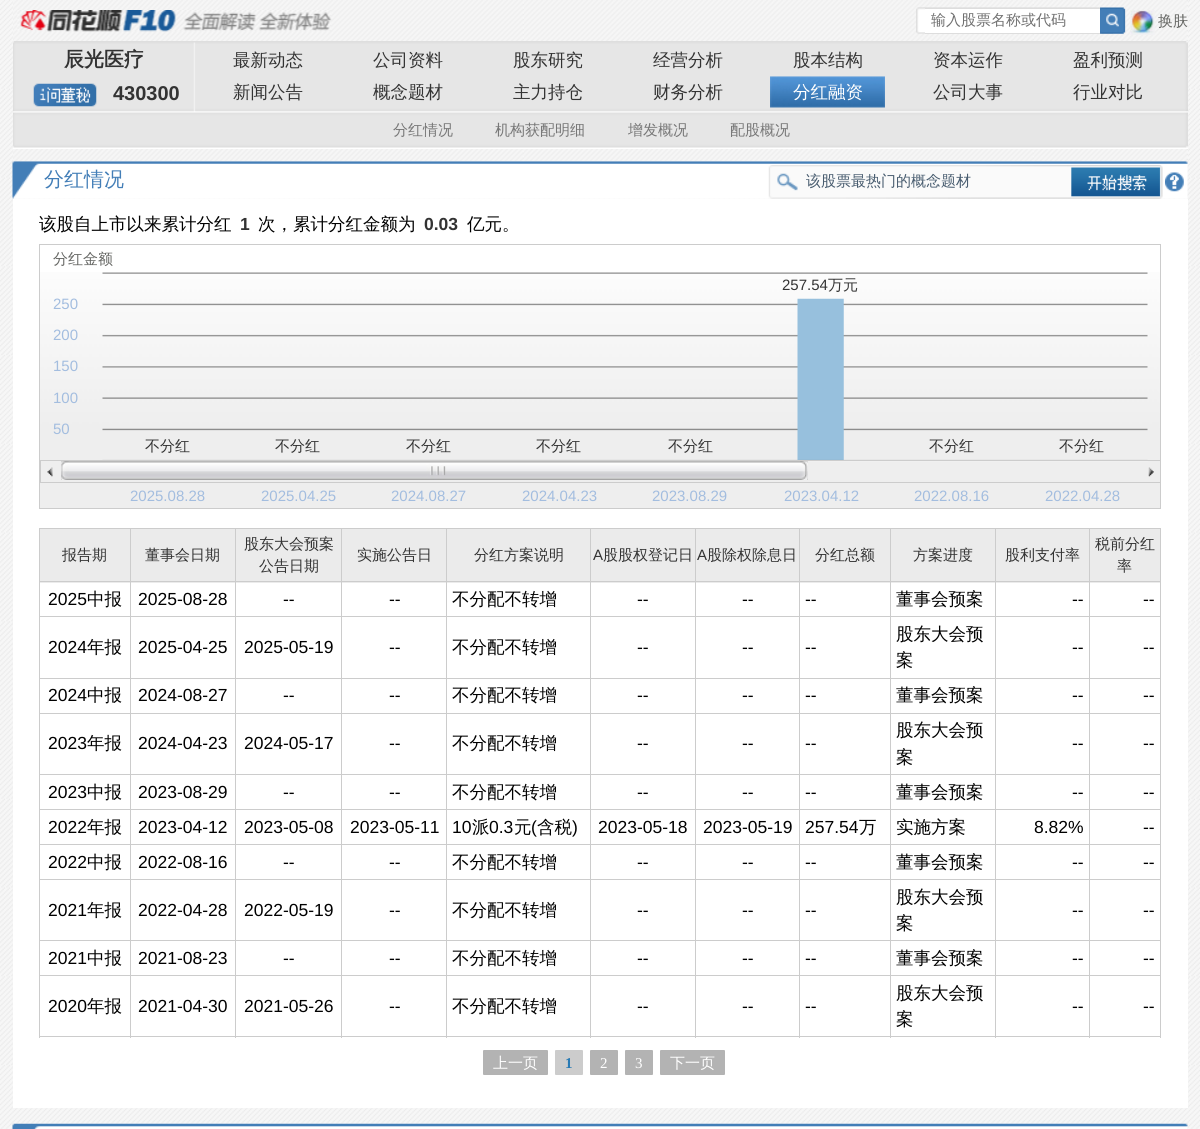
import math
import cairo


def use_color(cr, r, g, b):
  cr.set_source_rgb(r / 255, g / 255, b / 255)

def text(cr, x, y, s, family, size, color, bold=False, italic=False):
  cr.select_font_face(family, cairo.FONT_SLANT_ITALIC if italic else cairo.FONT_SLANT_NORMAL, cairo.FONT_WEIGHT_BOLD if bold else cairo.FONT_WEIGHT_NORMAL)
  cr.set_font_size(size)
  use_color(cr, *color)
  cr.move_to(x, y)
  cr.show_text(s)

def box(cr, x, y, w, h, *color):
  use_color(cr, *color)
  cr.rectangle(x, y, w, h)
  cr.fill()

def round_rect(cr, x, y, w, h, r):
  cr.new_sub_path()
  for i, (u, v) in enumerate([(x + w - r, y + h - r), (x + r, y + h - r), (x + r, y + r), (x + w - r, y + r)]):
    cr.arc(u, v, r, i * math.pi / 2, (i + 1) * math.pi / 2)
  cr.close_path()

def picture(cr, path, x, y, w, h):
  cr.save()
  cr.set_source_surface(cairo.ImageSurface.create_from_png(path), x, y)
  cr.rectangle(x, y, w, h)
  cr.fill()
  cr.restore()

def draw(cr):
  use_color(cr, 255, 255, 255)
  cr.paint()
  picture(cr, "img_01.png", 0, 0, 1200, 1129)
  picture(cr, "img_10.png", 12, 161, 1176, 38)
  picture(cr, "img_02.png", 13, 0, 1175, 162)
  picture(cr, "img_03.png", 17, 10, 315, 22)
  picture(cr, "img_04.png", 916, 7, 184, 27)
  box(cr, 925, 9, 175, 24, 255, 255, 255)
  box(cr, 925, 8, 175, 1, 221, 221, 221)
  box(cr, 925, 33, 188, 1, 221, 221, 221)
  picture(cr, "img_05.png", 1100, 7, 26, 27)
  picture(cr, "img_06.png", 1130, 10, 25, 25)
  picture(cr, "img_07.png", 13, 41, 1175, 108)
  picture(cr, "img_08.png", 33, 83, 64, 24)
  picture(cr, "img_09.png", 770, 76, 115, 32)
  box(cr, 13, 199, 1175, 909, 255, 255, 255)
  cr.rectangle(39.5, 244.5, 1121, 264)
  use_color(cr, 204, 204, 204)
  cr.set_line_width(1)
  cr.stroke()
  picture(cr, "img_11.png", 40, 272, 1120, 236)
  box(cr, 102, 461, 1046, 1, 240, 240, 240)
  cr.save()
  cr.rectangle(40, 245, 1120, 263)
  cr.clip()
  cr.rectangle(40.5, 460.5, 1120, 22)
  use_color(cr, 204, 204, 204)
  cr.stroke()
  cr.restore()
  picture(cr, "img_12.png", 47, 467, 6, 10)
  picture(cr, "img_13.png", 61, 461, 747, 19)
  picture(cr, "img_14.png", 61, 461, 8, 19)
  picture(cr, "img_15.png", 800, 461, 8, 19)
  picture(cr, "img_16.png", 1148, 467, 6, 10)
  box(cr, 39, 1036, 1122, 1, 204, 204, 204)
  box(cr, 39, 528, 1, 510, 204, 204, 204)
  box(cr, 40, 529, 90, 54, 235, 235, 235)
  box(cr, 39, 528, 1122, 1, 204, 204, 204)
  box(cr, 131, 529, 104, 54, 235, 235, 235)
  box(cr, 236, 529, 210, 54, 235, 235, 235)
  box(cr, 447, 529, 143, 54, 235, 235, 235)
  box(cr, 591, 529, 104, 54, 235, 235, 235)
  box(cr, 696, 529, 103, 54, 235, 235, 235)
  box(cr, 800, 529, 90, 54, 235, 235, 235)
  box(cr, 891, 529, 104, 54, 235, 235, 235)
  box(cr, 996, 529, 93, 54, 235, 235, 235)
  box(cr, 1090, 529, 70, 54, 235, 235, 235)
  box(cr, 39, 581, 1122, 1, 204, 204, 204)
  box(cr, 39, 616, 1122, 1, 204, 204, 204)
  box(cr, 39, 678, 1122, 1, 204, 204, 204)
  box(cr, 39, 713, 1122, 1, 204, 204, 204)
  box(cr, 39, 774, 1122, 1, 204, 204, 204)
  box(cr, 39, 809, 1122, 1, 204, 204, 204)
  box(cr, 39, 844, 1122, 1, 204, 204, 204)
  box(cr, 39, 879, 1122, 1, 204, 204, 204)
  box(cr, 39, 940, 1122, 1, 204, 204, 204)
  box(cr, 39, 975, 1122, 1, 204, 204, 204)
  box(cr, 130, 975, 1, 63, 204, 204, 204)
  box(cr, 130, 940, 1, 36, 204, 204, 204)
  box(cr, 130, 879, 1, 62, 204, 204, 204)
  box(cr, 130, 844, 1, 36, 204, 204, 204)
  box(cr, 130, 809, 1, 36, 204, 204, 204)
  box(cr, 130, 774, 1, 36, 204, 204, 204)
  box(cr, 130, 713, 1, 62, 204, 204, 204)
  box(cr, 130, 678, 1, 36, 204, 204, 204)
  box(cr, 130, 616, 1, 63, 204, 204, 204)
  box(cr, 130, 581, 1, 37, 204, 204, 204)
  box(cr, 130, 528, 1, 55, 204, 204, 204)
  box(cr, 235, 975, 1, 63, 204, 204, 204)
  box(cr, 235, 940, 1, 36, 204, 204, 204)
  box(cr, 235, 879, 1, 62, 204, 204, 204)
  box(cr, 235, 844, 1, 36, 204, 204, 204)
  box(cr, 235, 809, 1, 36, 204, 204, 204)
  box(cr, 235, 774, 1, 36, 204, 204, 204)
  box(cr, 235, 713, 1, 62, 204, 204, 204)
  box(cr, 235, 678, 1, 36, 204, 204, 204)
  box(cr, 235, 616, 1, 63, 204, 204, 204)
  box(cr, 235, 581, 1, 37, 204, 204, 204)
  box(cr, 235, 528, 1, 55, 204, 204, 204)
  box(cr, 341, 975, 1, 63, 204, 204, 204)
  box(cr, 341, 940, 1, 36, 204, 204, 204)
  box(cr, 341, 879, 1, 62, 204, 204, 204)
  box(cr, 341, 844, 1, 36, 204, 204, 204)
  box(cr, 341, 809, 1, 36, 204, 204, 204)
  box(cr, 341, 774, 1, 36, 204, 204, 204)
  box(cr, 341, 713, 1, 62, 204, 204, 204)
  box(cr, 341, 678, 1, 36, 204, 204, 204)
  box(cr, 341, 616, 1, 63, 204, 204, 204)
  box(cr, 341, 581, 1, 37, 204, 204, 204)
  box(cr, 341, 528, 1, 55, 204, 204, 204)
  box(cr, 446, 975, 1, 63, 204, 204, 204)
  box(cr, 446, 940, 1, 36, 204, 204, 204)
  box(cr, 446, 879, 1, 62, 204, 204, 204)
  box(cr, 446, 844, 1, 36, 204, 204, 204)
  box(cr, 446, 809, 1, 36, 204, 204, 204)
  box(cr, 446, 774, 1, 36, 204, 204, 204)
  box(cr, 446, 713, 1, 62, 204, 204, 204)
  box(cr, 446, 678, 1, 36, 204, 204, 204)
  box(cr, 446, 616, 1, 63, 204, 204, 204)
  box(cr, 446, 581, 1, 37, 204, 204, 204)
  box(cr, 446, 528, 1, 55, 204, 204, 204)
  box(cr, 590, 975, 1, 63, 204, 204, 204)
  box(cr, 590, 940, 1, 36, 204, 204, 204)
  box(cr, 590, 879, 1, 62, 204, 204, 204)
  box(cr, 590, 844, 1, 36, 204, 204, 204)
  box(cr, 590, 809, 1, 36, 204, 204, 204)
  box(cr, 590, 774, 1, 36, 204, 204, 204)
  box(cr, 590, 713, 1, 62, 204, 204, 204)
  box(cr, 590, 678, 1, 36, 204, 204, 204)
  box(cr, 590, 616, 1, 63, 204, 204, 204)
  box(cr, 590, 581, 1, 37, 204, 204, 204)
  box(cr, 590, 528, 1, 55, 204, 204, 204)
  box(cr, 695, 975, 1, 63, 204, 204, 204)
  box(cr, 695, 940, 1, 36, 204, 204, 204)
  box(cr, 695, 879, 1, 62, 204, 204, 204)
  box(cr, 695, 844, 1, 36, 204, 204, 204)
  box(cr, 695, 809, 1, 36, 204, 204, 204)
  box(cr, 695, 774, 1, 36, 204, 204, 204)
  box(cr, 695, 713, 1, 62, 204, 204, 204)
  box(cr, 695, 678, 1, 36, 204, 204, 204)
  box(cr, 695, 616, 1, 63, 204, 204, 204)
  box(cr, 695, 581, 1, 37, 204, 204, 204)
  box(cr, 695, 528, 1, 55, 204, 204, 204)
  box(cr, 799, 975, 1, 63, 204, 204, 204)
  box(cr, 799, 940, 1, 36, 204, 204, 204)
  box(cr, 799, 879, 1, 62, 204, 204, 204)
  box(cr, 799, 844, 1, 36, 204, 204, 204)
  box(cr, 799, 809, 1, 36, 204, 204, 204)
  box(cr, 799, 774, 1, 36, 204, 204, 204)
  box(cr, 799, 713, 1, 62, 204, 204, 204)
  box(cr, 799, 678, 1, 36, 204, 204, 204)
  box(cr, 799, 616, 1, 63, 204, 204, 204)
  box(cr, 799, 581, 1, 37, 204, 204, 204)
  box(cr, 799, 528, 1, 55, 204, 204, 204)
  box(cr, 890, 975, 1, 63, 204, 204, 204)
  box(cr, 890, 940, 1, 36, 204, 204, 204)
  box(cr, 890, 879, 1, 62, 204, 204, 204)
  box(cr, 890, 844, 1, 36, 204, 204, 204)
  box(cr, 890, 809, 1, 36, 204, 204, 204)
  box(cr, 890, 774, 1, 36, 204, 204, 204)
  box(cr, 890, 713, 1, 62, 204, 204, 204)
  box(cr, 890, 678, 1, 36, 204, 204, 204)
  box(cr, 890, 616, 1, 63, 204, 204, 204)
  box(cr, 890, 581, 1, 37, 204, 204, 204)
  box(cr, 890, 528, 1, 55, 204, 204, 204)
  box(cr, 995, 975, 1, 63, 204, 204, 204)
  box(cr, 995, 940, 1, 36, 204, 204, 204)
  box(cr, 995, 879, 1, 62, 204, 204, 204)
  box(cr, 995, 844, 1, 36, 204, 204, 204)
  box(cr, 995, 809, 1, 36, 204, 204, 204)
  box(cr, 995, 774, 1, 36, 204, 204, 204)
  box(cr, 995, 713, 1, 62, 204, 204, 204)
  box(cr, 995, 678, 1, 36, 204, 204, 204)
  box(cr, 995, 616, 1, 63, 204, 204, 204)
  box(cr, 995, 581, 1, 37, 204, 204, 204)
  box(cr, 995, 528, 1, 55, 204, 204, 204)
  box(cr, 1089, 975, 1, 63, 204, 204, 204)
  box(cr, 1089, 940, 1, 36, 204, 204, 204)
  box(cr, 1089, 879, 1, 62, 204, 204, 204)
  box(cr, 1089, 844, 1, 36, 204, 204, 204)
  box(cr, 1089, 809, 1, 36, 204, 204, 204)
  box(cr, 1089, 774, 1, 36, 204, 204, 204)
  box(cr, 1089, 713, 1, 62, 204, 204, 204)
  box(cr, 1089, 678, 1, 36, 204, 204, 204)
  box(cr, 1089, 616, 1, 63, 204, 204, 204)
  box(cr, 1089, 581, 1, 37, 204, 204, 204)
  box(cr, 1089, 528, 1, 55, 204, 204, 204)
  box(cr, 1160, 975, 1, 63, 204, 204, 204)
  box(cr, 1160, 940, 1, 36, 204, 204, 204)
  box(cr, 1160, 879, 1, 62, 204, 204, 204)
  box(cr, 1160, 844, 1, 36, 204, 204, 204)
  box(cr, 1160, 809, 1, 36, 204, 204, 204)
  box(cr, 1160, 774, 1, 36, 204, 204, 204)
  box(cr, 1160, 713, 1, 62, 204, 204, 204)
  box(cr, 1160, 678, 1, 36, 204, 204, 204)
  box(cr, 1160, 616, 1, 63, 204, 204, 204)
  box(cr, 1160, 581, 1, 37, 204, 204, 204)
  box(cr, 1160, 528, 1, 55, 204, 204, 204)
  use_color(cr, 179, 179, 179)
  round_rect(cr, 483.5, 1050.5, 64, 24, 0.5)
  cr.fill_preserve()
  cr.stroke()
  use_color(cr, 204, 204, 204)
  round_rect(cr, 555.5, 1050.5, 27, 24, 0.5)
  cr.fill_preserve()
  cr.stroke()
  use_color(cr, 179, 179, 179)
  round_rect(cr, 590.5, 1050.5, 27, 24, 0.5)
  cr.fill_preserve()
  cr.stroke()
  round_rect(cr, 625.5, 1050.5, 27, 24, 0.5)
  cr.fill_preserve()
  cr.stroke()
  round_rect(cr, 660.5, 1050.5, 64, 24, 0.5)
  cr.fill_preserve()
  cr.stroke()
  picture(cr, "img_17.png", 12, 1123, 1176, 6)
  picture(cr, "img_18.png", 768, 165, 395, 34)
  picture(cr, "img_19.png", 1165, 172, 19, 20)
  text(cr, 931, 25, "输入股票名称或代码", "WenQuanYi Zen Hei Medium", 15, (112, 112, 112))
  text(cr, 1158, 26, "换肤", "WenQuanYi Zen Hei Medium", 15, (102, 103, 100))
  text(cr, 64, 66, "辰光医疗", "WenQuanYi Zen Hei", 20, (51, 51, 51), bold=True)
  text(cr, 113, 100, "430300", "Liberation Sans", 20, (51, 51, 51), bold=True)
  text(cr, 233, 66, "最新动态", "WenQuanYi Zen Hei Medium", 17.5, (51, 51, 51))
  text(cr, 373, 66, "公司资料", "WenQuanYi Zen Hei Medium", 17.5, (51, 51, 51))
  text(cr, 513, 66, "股东研究", "WenQuanYi Zen Hei Medium", 17.5, (51, 51, 51))
  text(cr, 653, 66, "经营分析", "WenQuanYi Zen Hei Medium", 17.5, (51, 51, 51))
  text(cr, 793, 66, "股本结构", "WenQuanYi Zen Hei Medium", 17.5, (51, 51, 51))
  text(cr, 933, 66, "资本运作", "WenQuanYi Zen Hei Medium", 17.5, (51, 51, 51))
  text(cr, 1073, 66, "盈利预测", "WenQuanYi Zen Hei Medium", 17.5, (51, 51, 51))
  text(cr, 233, 98, "新闻公告", "WenQuanYi Zen Hei Medium", 17.5, (51, 51, 51))
  text(cr, 373, 98, "概念题材", "WenQuanYi Zen Hei Medium", 17.5, (51, 51, 51))
  text(cr, 513, 98, "主力持仓", "WenQuanYi Zen Hei Medium", 17.5, (51, 51, 51))
  text(cr, 653, 98, "财务分析", "WenQuanYi Zen Hei Medium", 17.5, (51, 51, 51))
  text(cr, 793, 98, "分红融资", "WenQuanYi Zen Hei Medium", 17.5, (255, 255, 255))
  text(cr, 933, 98, "公司大事", "WenQuanYi Zen Hei Medium", 17.5, (51, 51, 51))
  text(cr, 1073, 98, "行业对比", "WenQuanYi Zen Hei Medium", 17.5, (51, 51, 51))
  text(cr, 393, 135, "分红情况", "WenQuanYi Zen Hei Medium", 15, (119, 119, 119))
  text(cr, 495, 135, "机构获配明细", "WenQuanYi Zen Hei Medium", 15, (119, 119, 119))
  text(cr, 628, 135, "增发概况", "WenQuanYi Zen Hei Medium", 15, (119, 119, 119))
  text(cr, 730, 135, "配股概况", "WenQuanYi Zen Hei Medium", 15, (119, 119, 119))
  text(cr, 44, 186, "分红情况", "WenQuanYi Zen Hei Medium", 20, (67, 126, 183))
  text(cr, 39, 230, "该股自上市以来累计分红", "WenQuanYi Zen Hei Medium", 17.5, (0, 0, 0))
  text(cr, 240, 230, "1", "Liberation Sans", 17.5, (51, 51, 51), bold=True)
  text(cr, 258, 230, "次，累计分红金额为", "WenQuanYi Zen Hei Medium", 17.5, (0, 0, 0))
  text(cr, 424, 230, "0.03", "Liberation Sans", 17.5, (51, 51, 51), bold=True)
  text(cr, 467, 230, "亿元。", "WenQuanYi Zen Hei Medium", 17.5, (0, 0, 0))
  text(cr, 53, 264, "分红金额", "WenQuanYi Zen Hei Medium", 15, (102, 103, 100))
  text(cr, 782, 290, "257.54", "Liberation Sans", 15, (51, 51, 51))
  text(cr, 828, 290, "万元", "WenQuanYi Zen Hei Medium", 15, (51, 51, 51))
  text(cr, 53, 309, "250", "Liberation Sans", 15, (163, 189, 223))
  text(cr, 53, 340, "200", "Liberation Sans", 15, (163, 189, 223))
  text(cr, 53, 371, "150", "Liberation Sans", 15, (163, 189, 223))
  text(cr, 53, 403, "100", "Liberation Sans", 15, (163, 189, 223))
  text(cr, 53, 434, "50", "Liberation Sans", 15, (163, 189, 223))
  text(cr, 130, 501, "2025.08.28", "Liberation Sans", 15, (163, 189, 223))
  text(cr, 261, 501, "2025.04.25", "Liberation Sans", 15, (163, 189, 223))
  text(cr, 391, 501, "2024.08.27", "Liberation Sans", 15, (163, 189, 223))
  text(cr, 522, 501, "2024.04.23", "Liberation Sans", 15, (163, 189, 223))
  text(cr, 652, 501, "2023.08.29", "Liberation Sans", 15, (163, 189, 223))
  text(cr, 784, 501, "2023.04.12", "Liberation Sans", 15, (163, 189, 223))
  text(cr, 914, 501, "2022.08.16", "Liberation Sans", 15, (163, 189, 223))
  text(cr, 1045, 501, "2022.04.28", "Liberation Sans", 15, (163, 189, 223))
  text(cr, 145, 451, "不分红", "WenQuanYi Zen Hei Medium", 15, (51, 51, 51))
  text(cr, 275, 451, "不分红", "WenQuanYi Zen Hei Medium", 15, (51, 51, 51))
  text(cr, 406, 451, "不分红", "WenQuanYi Zen Hei Medium", 15, (51, 51, 51))
  text(cr, 536, 451, "不分红", "WenQuanYi Zen Hei Medium", 15, (51, 51, 51))
  text(cr, 668, 451, "不分红", "WenQuanYi Zen Hei Medium", 15, (51, 51, 51))
  text(cr, 929, 451, "不分红", "WenQuanYi Zen Hei Medium", 15, (51, 51, 51))
  text(cr, 1059, 451, "不分红", "WenQuanYi Zen Hei Medium", 15, (51, 51, 51))
  text(cr, 62, 560, "报告期", "WenQuanYi Zen Hei Medium", 15, (51, 51, 51))
  text(cr, 145, 560, "董事会日期", "WenQuanYi Zen Hei Medium", 15, (51, 51, 51))
  text(cr, 244, 549, "股东大会预案", "WenQuanYi Zen Hei Medium", 15, (51, 51, 51))
  text(cr, 259, 571, "公告日期", "WenQuanYi Zen Hei Medium", 15, (51, 51, 51))
  text(cr, 357, 560, "实施公告日", "WenQuanYi Zen Hei Medium", 15, (51, 51, 51))
  text(cr, 474, 560, "分红方案说明", "WenQuanYi Zen Hei Medium", 15, (51, 51, 51))
  text(cr, 593, 560, "A", "Liberation Sans", 15, (51, 51, 51))
  text(cr, 603, 560, "股股权登记日", "WenQuanYi Zen Hei Medium", 15, (51, 51, 51))
  text(cr, 697, 560, "A", "Liberation Sans", 15, (51, 51, 51))
  text(cr, 707, 560, "股除权除息日", "WenQuanYi Zen Hei Medium", 15, (51, 51, 51))
  text(cr, 815, 560, "分红总额", "WenQuanYi Zen Hei Medium", 15, (51, 51, 51))
  text(cr, 913, 560, "方案进度", "WenQuanYi Zen Hei Medium", 15, (51, 51, 51))
  text(cr, 1005, 560, "股利支付率", "WenQuanYi Zen Hei Medium", 15, (51, 51, 51))
  text(cr, 1095, 549, "税前分红", "WenQuanYi Zen Hei Medium", 15, (51, 51, 51))
  text(cr, 1117, 571, "率", "WenQuanYi Zen Hei Medium", 15, (51, 51, 51))
  text(cr, 48, 605, "2025", "Liberation Sans", 17.5, (0, 0, 0))
  text(cr, 87, 605, "中报", "WenQuanYi Zen Hei Medium", 17.5, (0, 0, 0))
  text(cr, 138, 605, "2025-08-28", "Liberation Sans", 17.5, (0, 0, 0))
  text(cr, 283, 605, "--", "Liberation Sans", 17.5, (0, 0, 0))
  text(cr, 389, 605, "--", "Liberation Sans", 17.5, (0, 0, 0))
  text(cr, 452, 605, "不分配不转增", "WenQuanYi Zen Hei Medium", 17.5, (0, 0, 0))
  text(cr, 637, 605, "--", "Liberation Sans", 17.5, (0, 0, 0))
  text(cr, 742, 605, "--", "Liberation Sans", 17.5, (0, 0, 0))
  text(cr, 805, 605, "--", "Liberation Sans", 17.5, (0, 0, 0))
  text(cr, 896, 605, "董事会预案", "WenQuanYi Zen Hei Medium", 17.5, (0, 0, 0))
  text(cr, 1072, 605, "--", "Liberation Sans", 17.5, (0, 0, 0))
  text(cr, 1143, 605, "--", "Liberation Sans", 17.5, (0, 0, 0))
  text(cr, 48, 653, "2024", "Liberation Sans", 17.5, (0, 0, 0))
  text(cr, 87, 653, "年报", "WenQuanYi Zen Hei Medium", 17.5, (0, 0, 0))
  text(cr, 138, 653, "2025-04-25", "Liberation Sans", 17.5, (0, 0, 0))
  text(cr, 244, 653, "2025-05-19", "Liberation Sans", 17.5, (0, 0, 0))
  text(cr, 389, 653, "--", "Liberation Sans", 17.5, (0, 0, 0))
  text(cr, 452, 653, "不分配不转增", "WenQuanYi Zen Hei Medium", 17.5, (0, 0, 0))
  text(cr, 637, 653, "--", "Liberation Sans", 17.5, (0, 0, 0))
  text(cr, 742, 653, "--", "Liberation Sans", 17.5, (0, 0, 0))
  text(cr, 805, 653, "--", "Liberation Sans", 17.5, (0, 0, 0))
  text(cr, 896, 640, "股东大会预", "WenQuanYi Zen Hei Medium", 17.5, (0, 0, 0))
  text(cr, 896, 666, "案", "WenQuanYi Zen Hei Medium", 17.5, (0, 0, 0))
  text(cr, 1072, 653, "--", "Liberation Sans", 17.5, (0, 0, 0))
  text(cr, 1143, 653, "--", "Liberation Sans", 17.5, (0, 0, 0))
  text(cr, 48, 701, "2024", "Liberation Sans", 17.5, (0, 0, 0))
  text(cr, 87, 701, "中报", "WenQuanYi Zen Hei Medium", 17.5, (0, 0, 0))
  text(cr, 138, 701, "2024-08-27", "Liberation Sans", 17.5, (0, 0, 0))
  text(cr, 283, 701, "--", "Liberation Sans", 17.5, (0, 0, 0))
  text(cr, 389, 701, "--", "Liberation Sans", 17.5, (0, 0, 0))
  text(cr, 452, 701, "不分配不转增", "WenQuanYi Zen Hei Medium", 17.5, (0, 0, 0))
  text(cr, 637, 701, "--", "Liberation Sans", 17.5, (0, 0, 0))
  text(cr, 742, 701, "--", "Liberation Sans", 17.5, (0, 0, 0))
  text(cr, 805, 701, "--", "Liberation Sans", 17.5, (0, 0, 0))
  text(cr, 896, 701, "董事会预案", "WenQuanYi Zen Hei Medium", 17.5, (0, 0, 0))
  text(cr, 1072, 701, "--", "Liberation Sans", 17.5, (0, 0, 0))
  text(cr, 1143, 701, "--", "Liberation Sans", 17.5, (0, 0, 0))
  text(cr, 48, 749, "2023", "Liberation Sans", 17.5, (0, 0, 0))
  text(cr, 87, 749, "年报", "WenQuanYi Zen Hei Medium", 17.5, (0, 0, 0))
  text(cr, 138, 749, "2024-04-23", "Liberation Sans", 17.5, (0, 0, 0))
  text(cr, 244, 749, "2024-05-17", "Liberation Sans", 17.5, (0, 0, 0))
  text(cr, 389, 749, "--", "Liberation Sans", 17.5, (0, 0, 0))
  text(cr, 452, 749, "不分配不转增", "WenQuanYi Zen Hei Medium", 17.5, (0, 0, 0))
  text(cr, 637, 749, "--", "Liberation Sans", 17.5, (0, 0, 0))
  text(cr, 742, 749, "--", "Liberation Sans", 17.5, (0, 0, 0))
  text(cr, 805, 749, "--", "Liberation Sans", 17.5, (0, 0, 0))
  text(cr, 896, 736, "股东大会预", "WenQuanYi Zen Hei Medium", 17.5, (0, 0, 0))
  text(cr, 896, 763, "案", "WenQuanYi Zen Hei Medium", 17.5, (0, 0, 0))
  text(cr, 1072, 749, "--", "Liberation Sans", 17.5, (0, 0, 0))
  text(cr, 1143, 749, "--", "Liberation Sans", 17.5, (0, 0, 0))
  text(cr, 48, 798, "2023", "Liberation Sans", 17.5, (0, 0, 0))
  text(cr, 87, 798, "中报", "WenQuanYi Zen Hei Medium", 17.5, (0, 0, 0))
  text(cr, 138, 798, "2023-08-29", "Liberation Sans", 17.5, (0, 0, 0))
  text(cr, 283, 798, "--", "Liberation Sans", 17.5, (0, 0, 0))
  text(cr, 389, 798, "--", "Liberation Sans", 17.5, (0, 0, 0))
  text(cr, 452, 798, "不分配不转增", "WenQuanYi Zen Hei Medium", 17.5, (0, 0, 0))
  text(cr, 637, 798, "--", "Liberation Sans", 17.5, (0, 0, 0))
  text(cr, 742, 798, "--", "Liberation Sans", 17.5, (0, 0, 0))
  text(cr, 805, 798, "--", "Liberation Sans", 17.5, (0, 0, 0))
  text(cr, 896, 798, "董事会预案", "WenQuanYi Zen Hei Medium", 17.5, (0, 0, 0))
  text(cr, 1072, 798, "--", "Liberation Sans", 17.5, (0, 0, 0))
  text(cr, 1143, 798, "--", "Liberation Sans", 17.5, (0, 0, 0))
  text(cr, 48, 833, "2022", "Liberation Sans", 17.5, (0, 0, 0))
  text(cr, 87, 833, "年报", "WenQuanYi Zen Hei Medium", 17.5, (0, 0, 0))
  text(cr, 138, 833, "2023-04-12", "Liberation Sans", 17.5, (0, 0, 0))
  text(cr, 244, 833, "2023-05-08", "Liberation Sans", 17.5, (0, 0, 0))
  text(cr, 350, 833, "2023-05-11", "Liberation Sans", 17.5, (0, 0, 0))
  text(cr, 452, 833, "10", "Liberation Sans", 17.5, (0, 0, 0))
  text(cr, 472, 833, "派", "WenQuanYi Zen Hei Medium", 17.5, (0, 0, 0))
  text(cr, 489, 833, "0.3", "Liberation Sans", 17.5, (0, 0, 0))
  text(cr, 514, 833, "元", "WenQuanYi Zen Hei Medium", 17.5, (0, 0, 0))
  text(cr, 531, 833, "(", "Liberation Sans", 17.5, (0, 0, 0))
  text(cr, 537, 833, "含税", "WenQuanYi Zen Hei Medium", 17.5, (0, 0, 0))
  text(cr, 572, 833, ")", "Liberation Sans", 17.5, (0, 0, 0))
  text(cr, 598, 833, "2023-05-18", "Liberation Sans", 17.5, (0, 0, 0))
  text(cr, 703, 833, "2023-05-19", "Liberation Sans", 17.5, (0, 0, 0))
  text(cr, 805, 833, "257.54", "Liberation Sans", 17.5, (0, 0, 0))
  text(cr, 859, 833, "万", "WenQuanYi Zen Hei Medium", 17.5, (0, 0, 0))
  text(cr, 896, 833, "实施方案", "WenQuanYi Zen Hei Medium", 17.5, (0, 0, 0))
  text(cr, 1034, 833, "8.82%", "Liberation Sans", 17.5, (0, 0, 0))
  text(cr, 1143, 833, "--", "Liberation Sans", 17.5, (0, 0, 0))
  text(cr, 48, 868, "2022", "Liberation Sans", 17.5, (0, 0, 0))
  text(cr, 87, 868, "中报", "WenQuanYi Zen Hei Medium", 17.5, (0, 0, 0))
  text(cr, 138, 868, "2022-08-16", "Liberation Sans", 17.5, (0, 0, 0))
  text(cr, 283, 868, "--", "Liberation Sans", 17.5, (0, 0, 0))
  text(cr, 389, 868, "--", "Liberation Sans", 17.5, (0, 0, 0))
  text(cr, 452, 868, "不分配不转增", "WenQuanYi Zen Hei Medium", 17.5, (0, 0, 0))
  text(cr, 637, 868, "--", "Liberation Sans", 17.5, (0, 0, 0))
  text(cr, 742, 868, "--", "Liberation Sans", 17.5, (0, 0, 0))
  text(cr, 805, 868, "--", "Liberation Sans", 17.5, (0, 0, 0))
  text(cr, 896, 868, "董事会预案", "WenQuanYi Zen Hei Medium", 17.5, (0, 0, 0))
  text(cr, 1072, 868, "--", "Liberation Sans", 17.5, (0, 0, 0))
  text(cr, 1143, 868, "--", "Liberation Sans", 17.5, (0, 0, 0))
  text(cr, 48, 916, "2021", "Liberation Sans", 17.5, (0, 0, 0))
  text(cr, 87, 916, "年报", "WenQuanYi Zen Hei Medium", 17.5, (0, 0, 0))
  text(cr, 138, 916, "2022-04-28", "Liberation Sans", 17.5, (0, 0, 0))
  text(cr, 244, 916, "2022-05-19", "Liberation Sans", 17.5, (0, 0, 0))
  text(cr, 389, 916, "--", "Liberation Sans", 17.5, (0, 0, 0))
  text(cr, 452, 916, "不分配不转增", "WenQuanYi Zen Hei Medium", 17.5, (0, 0, 0))
  text(cr, 637, 916, "--", "Liberation Sans", 17.5, (0, 0, 0))
  text(cr, 742, 916, "--", "Liberation Sans", 17.5, (0, 0, 0))
  text(cr, 805, 916, "--", "Liberation Sans", 17.5, (0, 0, 0))
  text(cr, 896, 903, "股东大会预", "WenQuanYi Zen Hei Medium", 17.5, (0, 0, 0))
  text(cr, 896, 929, "案", "WenQuanYi Zen Hei Medium", 17.5, (0, 0, 0))
  text(cr, 1072, 916, "--", "Liberation Sans", 17.5, (0, 0, 0))
  text(cr, 1143, 916, "--", "Liberation Sans", 17.5, (0, 0, 0))
  text(cr, 48, 964, "2021", "Liberation Sans", 17.5, (0, 0, 0))
  text(cr, 87, 964, "中报", "WenQuanYi Zen Hei Medium", 17.5, (0, 0, 0))
  text(cr, 138, 964, "2021-08-23", "Liberation Sans", 17.5, (0, 0, 0))
  text(cr, 283, 964, "--", "Liberation Sans", 17.5, (0, 0, 0))
  text(cr, 389, 964, "--", "Liberation Sans", 17.5, (0, 0, 0))
  text(cr, 452, 964, "不分配不转增", "WenQuanYi Zen Hei Medium", 17.5, (0, 0, 0))
  text(cr, 637, 964, "--", "Liberation Sans", 17.5, (0, 0, 0))
  text(cr, 742, 964, "--", "Liberation Sans", 17.5, (0, 0, 0))
  text(cr, 805, 964, "--", "Liberation Sans", 17.5, (0, 0, 0))
  text(cr, 896, 964, "董事会预案", "WenQuanYi Zen Hei Medium", 17.5, (0, 0, 0))
  text(cr, 1072, 964, "--", "Liberation Sans", 17.5, (0, 0, 0))
  text(cr, 1143, 964, "--", "Liberation Sans", 17.5, (0, 0, 0))
  text(cr, 48, 1012, "2020", "Liberation Sans", 17.5, (0, 0, 0))
  text(cr, 87, 1012, "年报", "WenQuanYi Zen Hei Medium", 17.5, (0, 0, 0))
  text(cr, 138, 1012, "2021-04-30", "Liberation Sans", 17.5, (0, 0, 0))
  text(cr, 244, 1012, "2021-05-26", "Liberation Sans", 17.5, (0, 0, 0))
  text(cr, 389, 1012, "--", "Liberation Sans", 17.5, (0, 0, 0))
  text(cr, 452, 1012, "不分配不转增", "WenQuanYi Zen Hei Medium", 17.5, (0, 0, 0))
  text(cr, 637, 1012, "--", "Liberation Sans", 17.5, (0, 0, 0))
  text(cr, 742, 1012, "--", "Liberation Sans", 17.5, (0, 0, 0))
  text(cr, 805, 1012, "--", "Liberation Sans", 17.5, (0, 0, 0))
  text(cr, 896, 999, "股东大会预", "WenQuanYi Zen Hei Medium", 17.5, (0, 0, 0))
  text(cr, 896, 1025, "案", "WenQuanYi Zen Hei Medium", 17.5, (0, 0, 0))
  text(cr, 1072, 1012, "--", "Liberation Sans", 17.5, (0, 0, 0))
  text(cr, 1143, 1012, "--", "Liberation Sans", 17.5, (0, 0, 0))
  text(cr, 493, 1068, "上一页", "WenQuanYi Zen Hei Medium", 15, (255, 255, 255))
  text(cr, 565, 1068, "1", "Liberation Serif", 15, (40, 122, 180), bold=True)
  text(cr, 600, 1068, "2", "Liberation Serif", 15, (255, 255, 255))
  text(cr, 635, 1068, "3", "Liberation Serif", 15, (255, 255, 255))
  text(cr, 670, 1068, "下一页", "WenQuanYi Zen Hei Medium", 15, (255, 255, 255))
  text(cr, 806, 186, "该股票最热门的概念题材", "WenQuanYi Zen Hei Medium", 15, (72, 92, 111))


surface = cairo.ImageSurface(cairo.FORMAT_RGB24, 1200, 1129)
cr = cairo.Context(surface)
options = cairo.FontOptions()
options.set_hint_metrics(cairo.HINT_METRICS_OFF)
options.set_hint_style(cairo.HINT_STYLE_NONE)
cr.set_font_options(options)
cr.set_miter_limit(4)
draw(cr)
surface.write_to_png("out.png")
